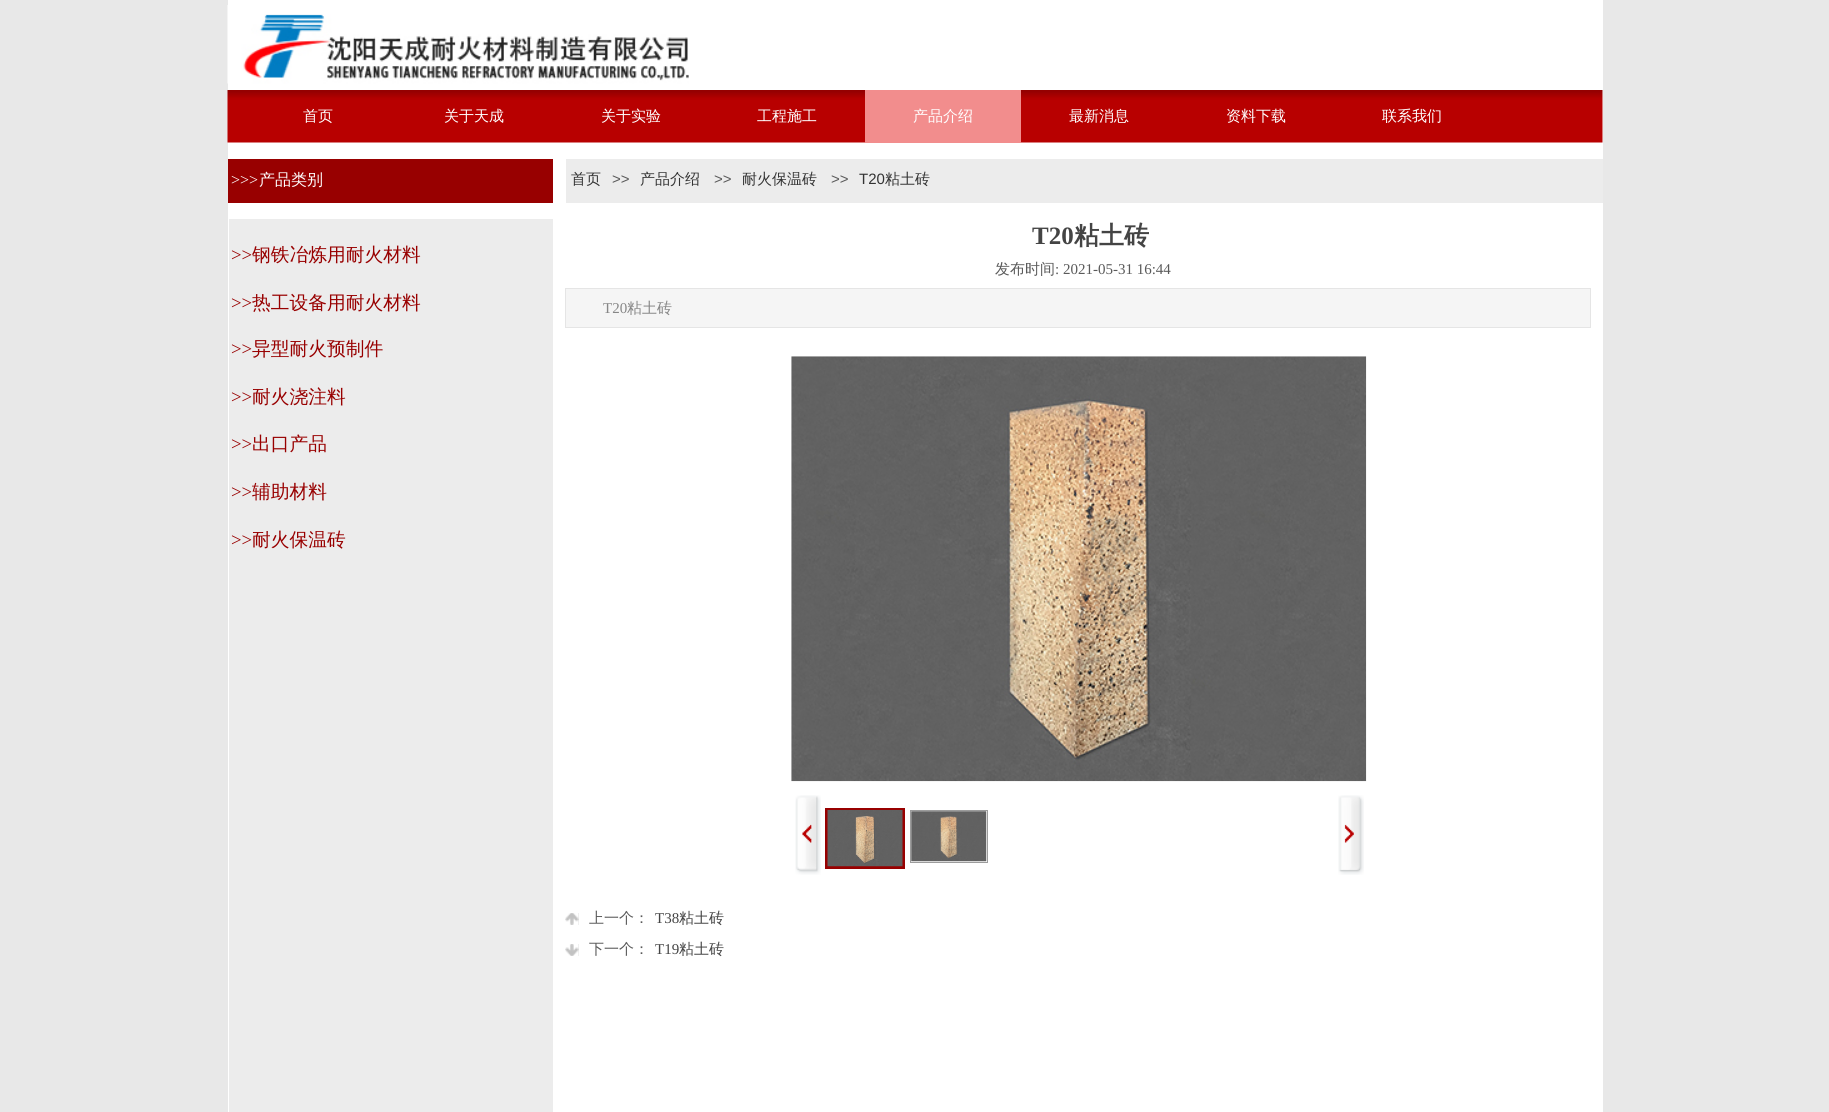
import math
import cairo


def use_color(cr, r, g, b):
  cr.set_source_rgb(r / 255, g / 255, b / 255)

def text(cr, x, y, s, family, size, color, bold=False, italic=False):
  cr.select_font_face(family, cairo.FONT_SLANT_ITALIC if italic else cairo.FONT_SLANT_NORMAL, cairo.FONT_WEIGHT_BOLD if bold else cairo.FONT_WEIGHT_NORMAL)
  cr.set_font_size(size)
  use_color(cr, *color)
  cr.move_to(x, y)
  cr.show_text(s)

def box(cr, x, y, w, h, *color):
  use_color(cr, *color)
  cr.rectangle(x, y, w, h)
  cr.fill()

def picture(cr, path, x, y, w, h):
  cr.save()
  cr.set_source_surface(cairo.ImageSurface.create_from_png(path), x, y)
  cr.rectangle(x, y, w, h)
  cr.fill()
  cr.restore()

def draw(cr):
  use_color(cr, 232, 232, 232)
  cr.paint()
  box(cr, 228, 0, 1375, 1112, 255, 255, 255)
  picture(cr, "img_01.png", 227, 5, 462, 79)
  picture(cr, "img_02.png", 227, 90, 1376, 53)
  box(cr, 865, 90, 156, 53, 242, 141, 141)
  box(cr, 228, 159, 325, 44, 152, 0, 0)
  box(cr, 566, 159, 1037, 44, 236, 236, 236)
  box(cr, 229, 219, 324, 893, 236, 236, 236)
  use_color(cr, 245, 245, 245)
  cr.rectangle(565.5, 288.5, 1025, 39)
  cr.fill_preserve()
  use_color(cr, 229, 229, 229)
  cr.set_line_width(1)
  cr.stroke()
  picture(cr, "img_03.png", 791, 356, 576, 426)
  picture(cr, "img_04.png", 795, 795, 26, 80)
  cr.rectangle(826.5, 809.5, 77, 58)
  use_color(cr, 152, 0, 0)
  cr.set_line_width(3)
  cr.stroke()
  picture(cr, "img_05.png", 827, 810, 76, 57)
  cr.rectangle(910.5, 810.5, 77, 52)
  use_color(cr, 156, 156, 156)
  cr.set_line_width(1)
  cr.stroke()
  picture(cr, "img_06.png", 911, 811, 76, 51)
  picture(cr, "img_07.png", 1338, 795, 26, 80)
  box(cr, 565, 913, 14, 12, 194, 194, 194)
  picture(cr, "img_08.png", 565, 913, 14, 12)
  box(cr, 565, 944, 14, 12, 194, 194, 194)
  picture(cr, "img_09.png", 565, 944, 14, 12)
  text(cr, 303, 121, "首页", "WenQuanYi Zen Hei Medium", 15, (255, 255, 255))
  text(cr, 444, 121, "关于天成", "WenQuanYi Zen Hei Medium", 15, (255, 255, 255))
  text(cr, 601, 121, "关于实验", "WenQuanYi Zen Hei Medium", 15, (255, 255, 255))
  text(cr, 757, 121, "工程施工", "WenQuanYi Zen Hei Medium", 15, (255, 255, 255))
  text(cr, 913, 121, "产品介绍", "WenQuanYi Zen Hei Medium", 15, (255, 255, 255))
  text(cr, 1069, 121, "最新消息", "WenQuanYi Zen Hei Medium", 15, (255, 255, 255))
  text(cr, 1226, 121, "资料下载", "WenQuanYi Zen Hei Medium", 15, (255, 255, 255))
  text(cr, 1382, 121, "联系我们", "WenQuanYi Zen Hei Medium", 15, (255, 255, 255))
  text(cr, 231, 185, ">>>", "Liberation Serif", 16, (255, 255, 255))
  text(cr, 259, 185, "产品类别", "WenQuanYi Zen Hei Medium", 16, (255, 255, 255))
  text(cr, 571, 184, "首页", "WenQuanYi Zen Hei Medium", 15, (51, 51, 51))
  text(cr, 612, 184, ">>", "Liberation Sans", 15, (90, 90, 90))
  text(cr, 640, 184, "产品介绍", "WenQuanYi Zen Hei Medium", 15, (51, 51, 51))
  text(cr, 714, 184, ">>", "Liberation Sans", 15, (90, 90, 90))
  text(cr, 742, 184, "耐火保温砖", "WenQuanYi Zen Hei Medium", 15, (51, 51, 51))
  text(cr, 831, 184, ">>", "Liberation Sans", 15, (90, 90, 90))
  text(cr, 859, 184, "T20", "Liberation Sans", 15, (51, 51, 51))
  text(cr, 885, 184, "粘土砖", "WenQuanYi Zen Hei Medium", 15, (51, 51, 51))
  text(cr, 231, 261, ">>", "Liberation Serif", 18.75, (152, 0, 0))
  text(cr, 252, 261, "钢铁冶炼用耐火材料", "WenQuanYi Zen Hei Medium", 18.75, (152, 0, 0))
  text(cr, 231, 309, ">>", "Liberation Serif", 18.75, (152, 0, 0))
  text(cr, 252, 309, "热工设备用耐火材料", "WenQuanYi Zen Hei Medium", 18.75, (152, 0, 0))
  text(cr, 231, 355, ">>", "Liberation Serif", 18.75, (152, 0, 0))
  text(cr, 252, 355, "异型耐火预制件", "WenQuanYi Zen Hei Medium", 18.75, (152, 0, 0))
  text(cr, 231, 403, ">>", "Liberation Serif", 18.75, (152, 0, 0))
  text(cr, 252, 403, "耐火浇注料", "WenQuanYi Zen Hei Medium", 18.75, (152, 0, 0))
  text(cr, 231, 450, ">>", "Liberation Serif", 18.75, (152, 0, 0))
  text(cr, 252, 450, "出口产品", "WenQuanYi Zen Hei Medium", 18.75, (152, 0, 0))
  text(cr, 231, 498, ">>", "Liberation Serif", 18.75, (152, 0, 0))
  text(cr, 252, 498, "辅助材料", "WenQuanYi Zen Hei Medium", 18.75, (152, 0, 0))
  text(cr, 231, 546, ">>", "Liberation Serif", 18.75, (152, 0, 0))
  text(cr, 252, 546, "耐火保温砖", "WenQuanYi Zen Hei Medium", 18.75, (152, 0, 0))
  text(cr, 1032, 244, "T20", "Liberation Serif", 25, (68, 68, 68), bold=True)
  text(cr, 1074, 244, "粘土砖", "WenQuanYi Zen Hei", 25, (68, 68, 68), bold=True)
  text(cr, 995, 274, "发布时间", "WenQuanYi Zen Hei Medium", 15, (90, 90, 90))
  text(cr, 1055, 274, ": 2021-05-31 16:44", "Liberation Serif", 15, (90, 90, 90))
  text(cr, 603, 313, "T20", "Liberation Serif", 15, (134, 134, 134))
  text(cr, 627, 313, "粘土砖", "WenQuanYi Zen Hei Medium", 15, (134, 134, 134))
  text(cr, 589, 923, "上一个：", "WenQuanYi Zen Hei Medium", 15, (90, 90, 90))
  text(cr, 655, 923, "T38", "Liberation Serif", 15, (68, 68, 68))
  text(cr, 679, 923, "粘土砖", "WenQuanYi Zen Hei Medium", 15, (68, 68, 68))
  text(cr, 589, 954, "下一个：", "WenQuanYi Zen Hei Medium", 15, (90, 90, 90))
  text(cr, 655, 954, "T19", "Liberation Serif", 15, (68, 68, 68))
  text(cr, 679, 954, "粘土砖", "WenQuanYi Zen Hei Medium", 15, (68, 68, 68))


surface = cairo.ImageSurface(cairo.FORMAT_RGB24, 1829, 1112)
cr = cairo.Context(surface)
options = cairo.FontOptions()
options.set_hint_metrics(cairo.HINT_METRICS_OFF)
options.set_hint_style(cairo.HINT_STYLE_NONE)
cr.set_font_options(options)
cr.set_miter_limit(4)
draw(cr)
surface.write_to_png("out.png")
